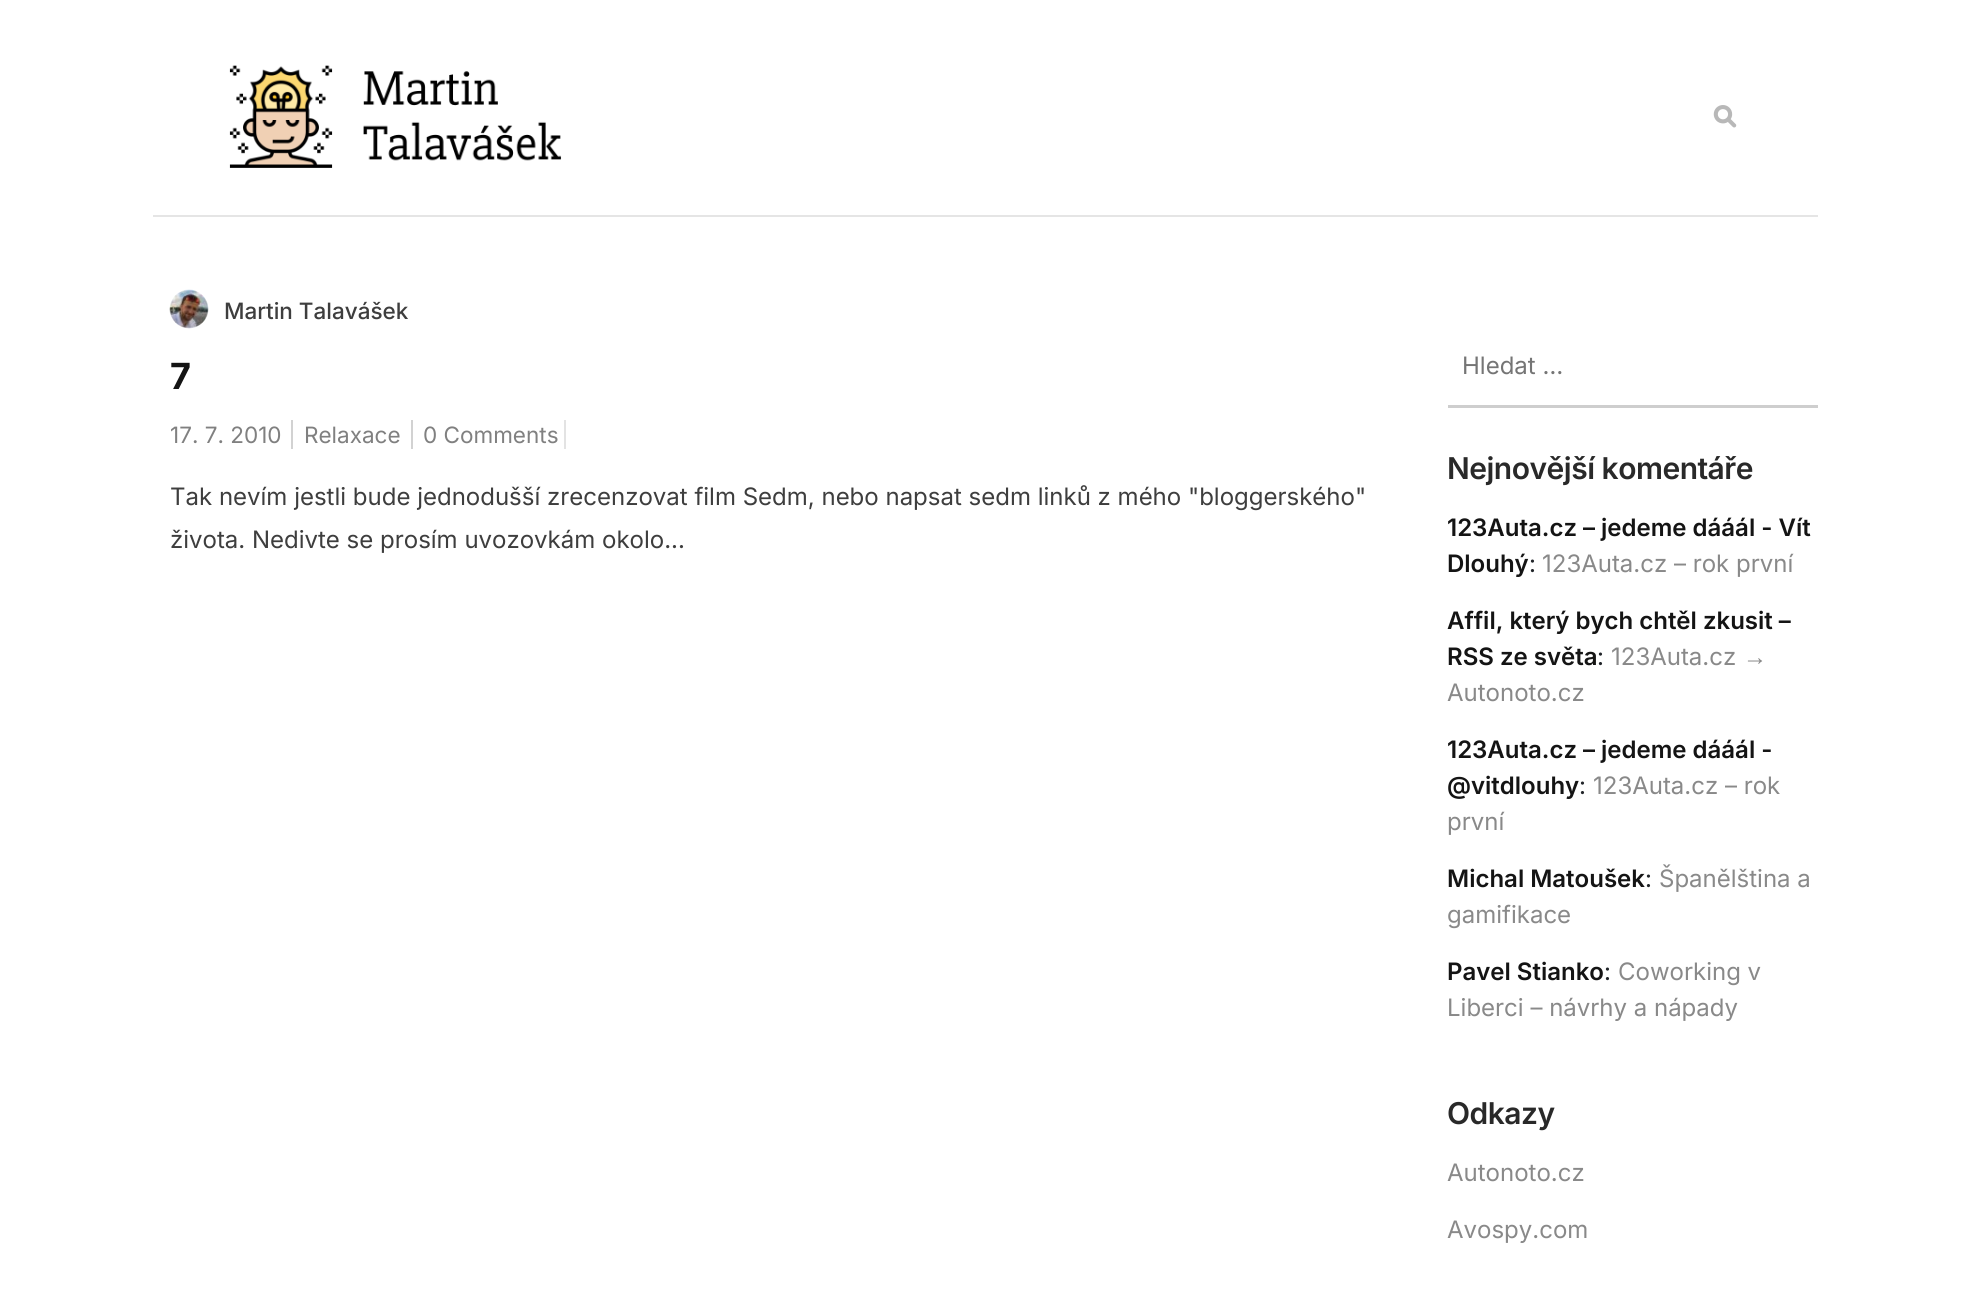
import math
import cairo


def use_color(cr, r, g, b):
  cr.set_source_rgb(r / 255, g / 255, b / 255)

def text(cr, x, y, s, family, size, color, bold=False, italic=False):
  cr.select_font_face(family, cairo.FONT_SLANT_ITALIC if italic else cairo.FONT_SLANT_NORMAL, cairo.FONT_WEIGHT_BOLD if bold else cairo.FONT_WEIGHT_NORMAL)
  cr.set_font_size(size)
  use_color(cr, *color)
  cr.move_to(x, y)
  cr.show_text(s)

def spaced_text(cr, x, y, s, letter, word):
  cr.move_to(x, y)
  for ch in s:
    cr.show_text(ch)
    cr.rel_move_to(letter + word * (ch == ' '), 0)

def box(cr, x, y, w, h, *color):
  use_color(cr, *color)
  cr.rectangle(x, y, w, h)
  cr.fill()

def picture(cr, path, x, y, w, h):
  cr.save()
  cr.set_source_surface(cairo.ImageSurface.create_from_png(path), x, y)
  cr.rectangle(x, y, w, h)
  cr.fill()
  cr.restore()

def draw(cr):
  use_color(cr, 255, 255, 255)
  cr.paint()
  box(cr, 153, 215, 1665, 2, 229, 229, 229)
  picture(cr, "img_01.png", 229, 65, 333, 103)
  picture(cr, "img_02.png", 1713, 105, 24, 23)
  picture(cr, "img_03.png", 169, 289, 40, 40)
  box(cr, 291, 420, 2, 29, 210, 210, 210)
  box(cr, 411, 420, 2, 29, 210, 210, 210)
  box(cr, 564, 420, 2, 29, 227, 227, 227)
  box(cr, 1448, 405, 370, 3, 206, 206, 206)
  text(cr, 224, 319, "Martin Talavášek", "Inter Medium", 22.5, (62, 62, 62))
  cr.select_font_face("Inter", cairo.FONT_SLANT_NORMAL, cairo.FONT_WEIGHT_BOLD)
  cr.set_font_size(36)
  use_color(cr, 20, 20, 20)
  spaced_text(cr, 170, 389, "7", -0.5, 0)
  text(cr, 170, 443, "17. 7. 2010", "Inter", 22.5, (128, 128, 128))
  text(cr, 304, 443, "Relaxace", "Inter", 22.5, (128, 128, 128))
  text(cr, 423, 443, "0 Comments", "Inter", 22.5, (128, 128, 128))
  text(cr, 170, 505, "Tak nevím jestli bude jednodušší zrecenzovat film Sedm, nebo napsat sedm linků z mého \"bloggerského\"", "Inter", 24, (62, 62, 62))
  text(cr, 170, 548, "života. Nedivte se prosím uvozovkám okolo...", "Inter", 24, (62, 62, 62))
  text(cr, 1462, 374, "Hledat …", "Inter", 24, (117, 117, 117))
  cr.select_font_face("Inter SemiBold")
  cr.set_font_size(30)
  use_color(cr, 41, 41, 41)
  spaced_text(cr, 1447, 479, "Nejnovější komentáře", -0.5, 0)
  text(cr, 1447, 536, "123Auta.cz – jedeme dááál - Vít", "Inter SemiBold", 24, (20, 20, 20))
  text(cr, 1447, 572, "Dlouhý", "Inter SemiBold", 24, (20, 20, 20))
  text(cr, 1529, 572, ":", "Inter", 24, (33, 37, 41))
  text(cr, 1542, 572, "123Auta.cz – rok první", "Inter", 24, (137, 137, 137))
  text(cr, 1447, 629, "Affil, který bych chtěl zkusit –", "Inter SemiBold", 24, (20, 20, 20))
  text(cr, 1447, 665, "RSS ze světa", "Inter SemiBold", 24, (20, 20, 20))
  text(cr, 1597, 665, ":", "Inter", 24, (33, 37, 41))
  text(cr, 1611, 665, "123Auta.cz", "Inter", 24, (137, 137, 137))
  text(cr, 1743, 665, "→", "Liberation Sans", 24, (137, 137, 137))
  text(cr, 1447, 701, "Autonoto.cz", "Inter", 24, (137, 137, 137))
  text(cr, 1447, 758, "123Auta.cz – jedeme dááál -", "Inter SemiBold", 24, (20, 20, 20))
  text(cr, 1447, 794, "@vitdlouhy", "Inter SemiBold", 24, (20, 20, 20))
  text(cr, 1579, 794, ":", "Inter", 24, (33, 37, 41))
  text(cr, 1593, 794, "123Auta.cz – rok", "Inter", 24, (137, 137, 137))
  text(cr, 1447, 830, "první", "Inter", 24, (137, 137, 137))
  text(cr, 1447, 887, "Michal Matoušek", "Inter SemiBold", 24, (20, 20, 20))
  text(cr, 1645, 887, ":", "Inter", 24, (33, 37, 41))
  text(cr, 1659, 887, "Španělština a", "Inter", 24, (137, 137, 137))
  text(cr, 1447, 923, "gamifikace", "Inter", 24, (137, 137, 137))
  text(cr, 1447, 980, "Pavel Stianko", "Inter SemiBold", 24, (20, 20, 20))
  text(cr, 1604, 980, ":", "Inter", 24, (33, 37, 41))
  text(cr, 1618, 980, "Coworking v", "Inter", 24, (137, 137, 137))
  text(cr, 1447, 1016, "Liberci – návrhy a nápady", "Inter", 24, (137, 137, 137))
  cr.select_font_face("Inter SemiBold")
  cr.set_font_size(30)
  use_color(cr, 41, 41, 41)
  spaced_text(cr, 1447, 1124, "Odkazy", -0.5, 0)
  text(cr, 1447, 1181, "Autonoto.cz", "Inter", 24, (137, 137, 137))
  text(cr, 1447, 1238, "Avospy.com", "Inter", 24, (137, 137, 137))


surface = cairo.ImageSurface(cairo.FORMAT_RGB24, 1970, 1290)
cr = cairo.Context(surface)
options = cairo.FontOptions()
options.set_hint_metrics(cairo.HINT_METRICS_OFF)
options.set_hint_style(cairo.HINT_STYLE_NONE)
cr.set_font_options(options)
cr.set_miter_limit(4)
draw(cr)
surface.write_to_png("out.png")
